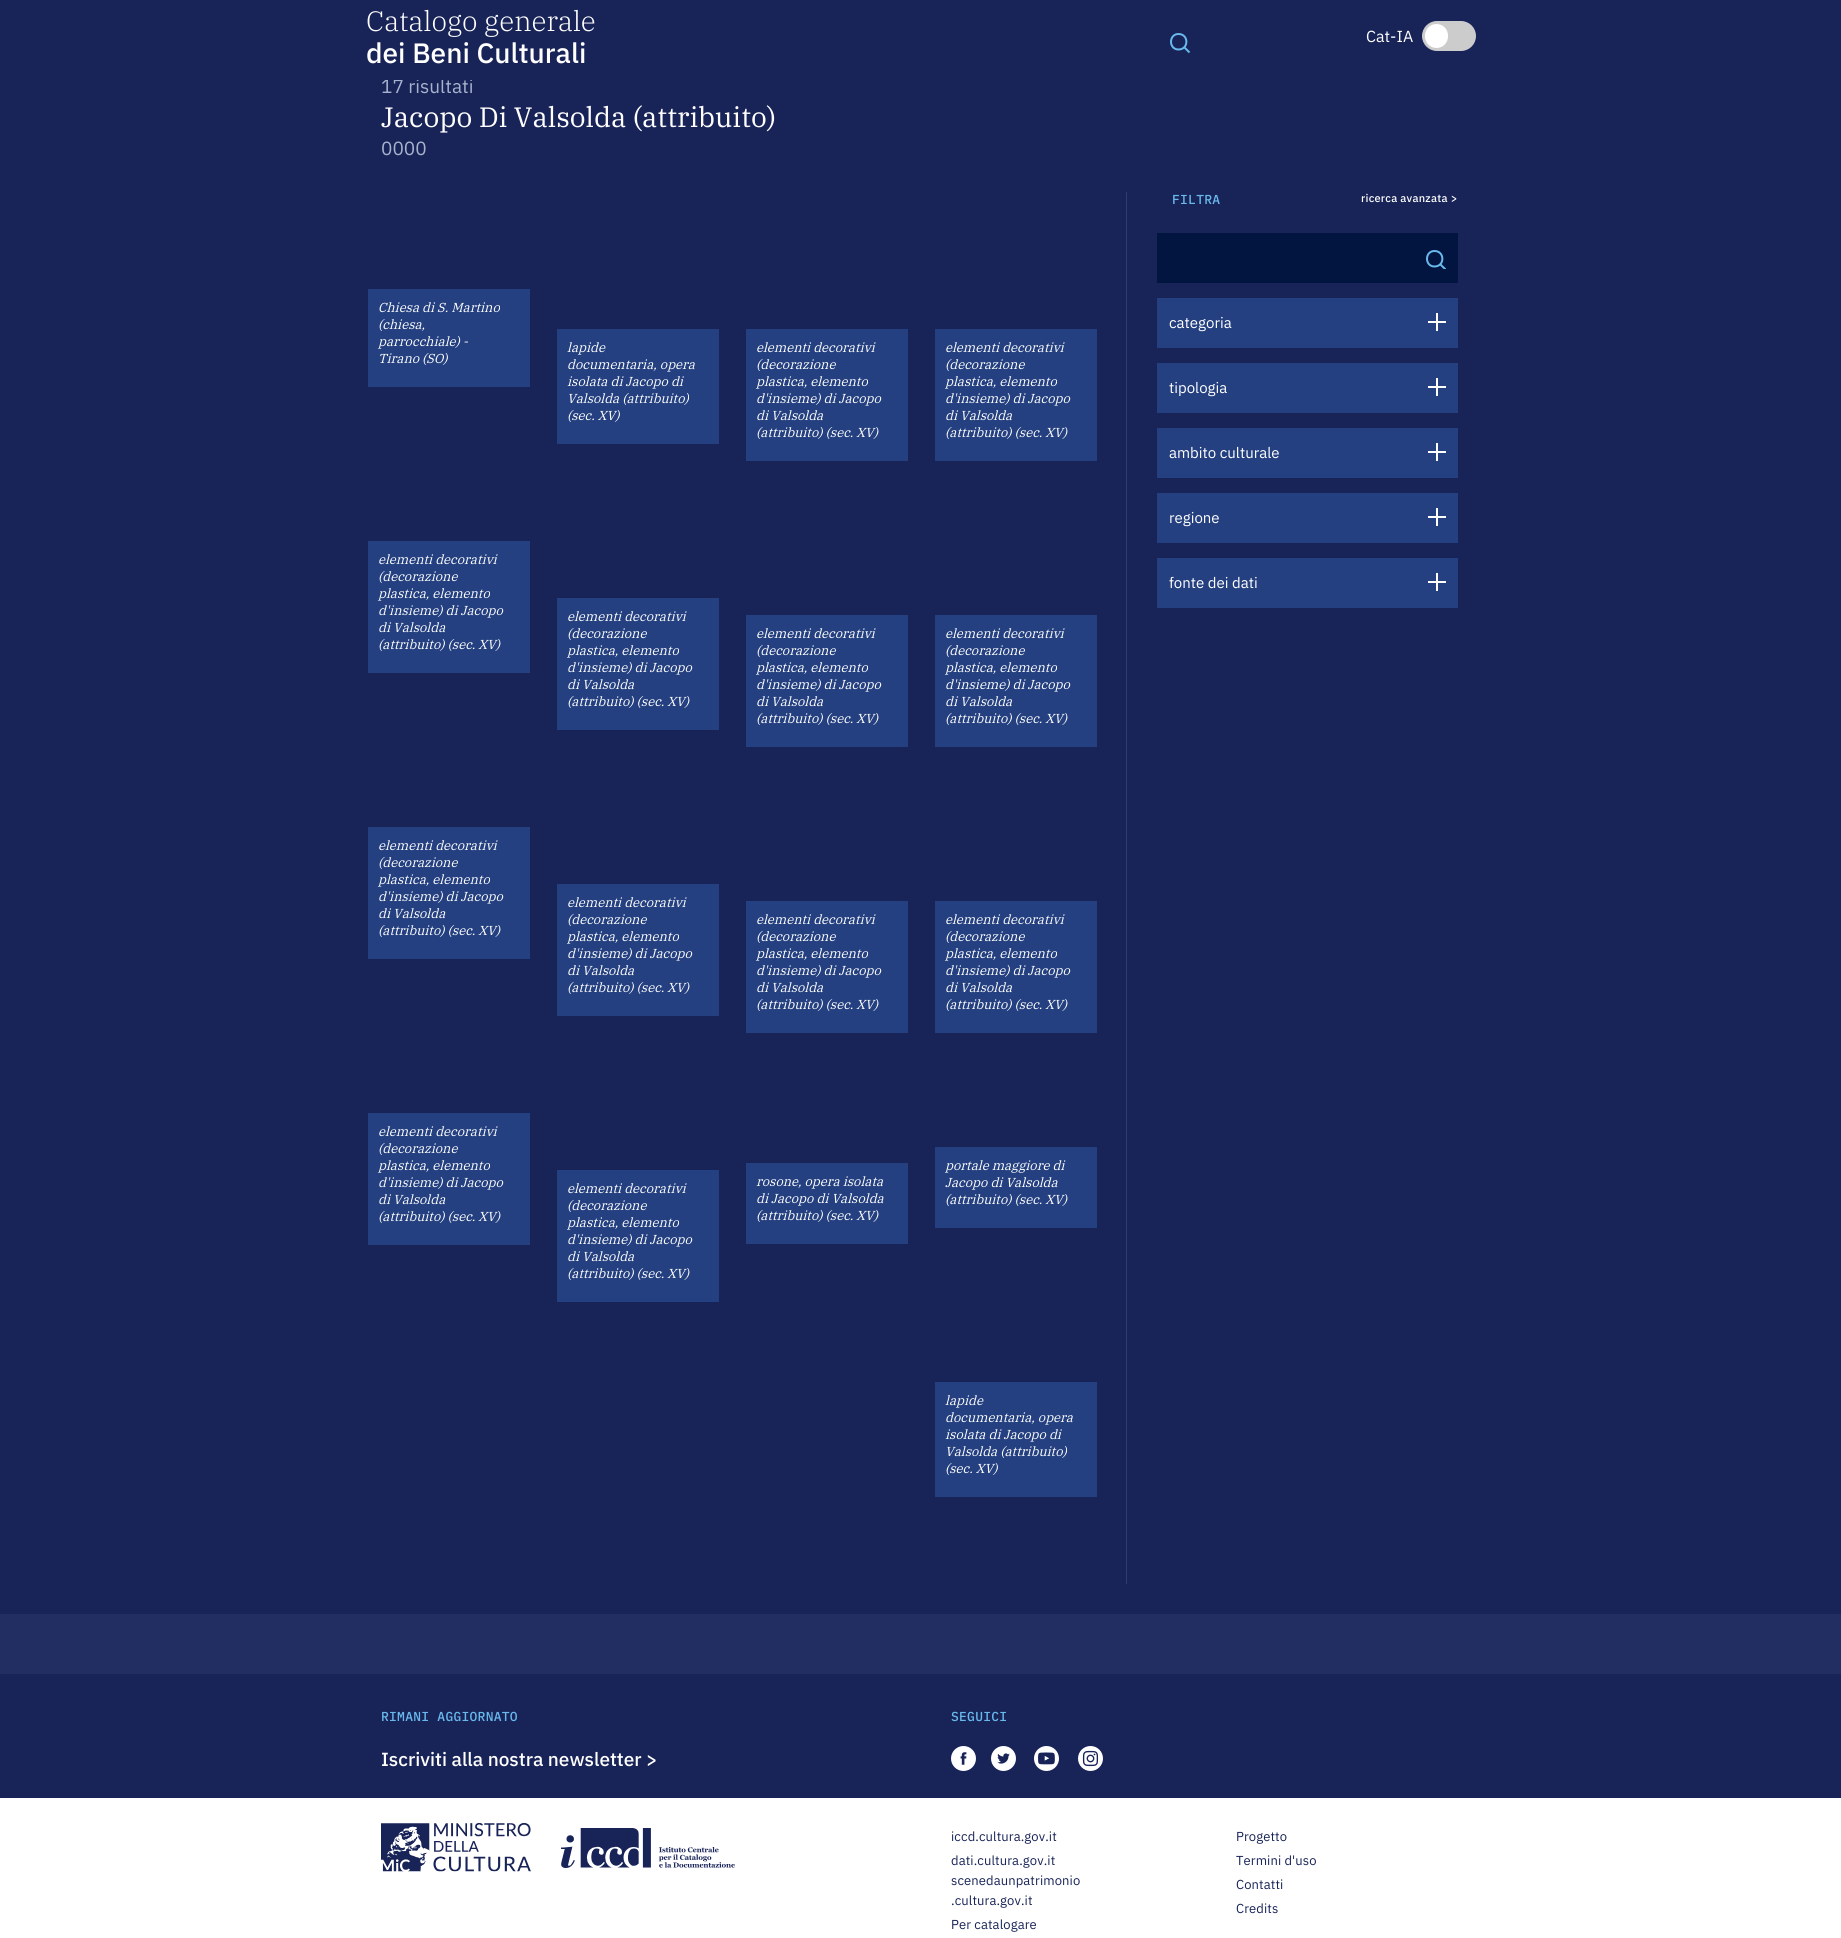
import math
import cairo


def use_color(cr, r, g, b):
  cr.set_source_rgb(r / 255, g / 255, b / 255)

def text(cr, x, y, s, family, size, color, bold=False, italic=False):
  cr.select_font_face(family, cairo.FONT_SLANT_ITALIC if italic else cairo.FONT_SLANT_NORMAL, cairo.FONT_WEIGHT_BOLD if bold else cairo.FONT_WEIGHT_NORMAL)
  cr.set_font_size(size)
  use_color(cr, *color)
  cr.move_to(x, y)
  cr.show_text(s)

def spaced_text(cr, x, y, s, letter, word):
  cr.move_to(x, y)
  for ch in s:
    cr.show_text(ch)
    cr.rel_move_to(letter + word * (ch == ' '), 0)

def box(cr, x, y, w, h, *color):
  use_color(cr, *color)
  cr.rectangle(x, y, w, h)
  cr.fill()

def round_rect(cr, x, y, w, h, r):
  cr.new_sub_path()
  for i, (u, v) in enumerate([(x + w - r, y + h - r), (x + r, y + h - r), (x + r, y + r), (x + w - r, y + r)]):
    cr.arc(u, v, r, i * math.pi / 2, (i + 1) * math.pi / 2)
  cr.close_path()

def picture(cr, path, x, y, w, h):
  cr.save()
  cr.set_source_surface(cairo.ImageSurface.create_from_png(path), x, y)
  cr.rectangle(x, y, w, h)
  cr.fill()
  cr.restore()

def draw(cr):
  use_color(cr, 255, 255, 255)
  cr.paint()
  box(cr, 0, 80, 1841, 1534, 24, 35, 88)
  box(cr, 1126, 192, 1, 1392, 42, 63, 113)
  box(cr, 368, 289, 162, 98, 36, 64, 128)
  box(cr, 557, 329, 162, 115, 36, 64, 128)
  box(cr, 746, 329, 162, 132, 36, 64, 128)
  box(cr, 935, 329, 162, 132, 36, 64, 128)
  box(cr, 368, 541, 162, 132, 36, 64, 128)
  box(cr, 557, 598, 162, 132, 36, 64, 128)
  box(cr, 746, 615, 162, 132, 36, 64, 128)
  box(cr, 935, 615, 162, 132, 36, 64, 128)
  box(cr, 368, 827, 162, 132, 36, 64, 128)
  box(cr, 557, 884, 162, 132, 36, 64, 128)
  box(cr, 746, 901, 162, 132, 36, 64, 128)
  box(cr, 935, 901, 162, 132, 36, 64, 128)
  box(cr, 368, 1113, 162, 132, 36, 64, 128)
  box(cr, 557, 1170, 162, 132, 36, 64, 128)
  box(cr, 746, 1163, 162, 81, 36, 64, 128)
  box(cr, 935, 1147, 162, 81, 36, 64, 128)
  box(cr, 935, 1382, 162, 115, 36, 64, 128)
  box(cr, 1157, 233, 301, 50, 2, 20, 64)
  cr.new_path()
  cr.move_to(1434.5, 266.5)
  cr.curve_to(1445, 266.5, 1445, 251, 1434.5, 251)
  cr.curve_to(1424.5, 251, 1424.5, 266.5, 1434.5, 266.5)
  cr.close_path()
  use_color(cr, 105, 185, 236)
  cr.stroke()
  cr.save()
  cr.rectangle(1426, 250, 20, 19)
  cr.clip()
  cr.new_path()
  cr.move_to(1440.5, 264.5)
  cr.line_to(1445.5, 269.5)
  cr.stroke()
  cr.restore()
  box(cr, 1157, 298, 301, 50, 36, 64, 128)
  box(cr, 1428, 321, 18, 2, 255, 255, 255)
  box(cr, 1436, 313, 2, 18, 255, 255, 255)
  box(cr, 1157, 363, 301, 50, 36, 64, 128)
  box(cr, 1428, 386, 18, 2, 255, 255, 255)
  box(cr, 1436, 378, 2, 18, 255, 255, 255)
  box(cr, 1157, 428, 301, 50, 36, 64, 128)
  box(cr, 1428, 451, 18, 2, 255, 255, 255)
  box(cr, 1436, 443, 2, 18, 255, 255, 255)
  box(cr, 1157, 493, 301, 50, 36, 64, 128)
  box(cr, 1428, 516, 18, 2, 255, 255, 255)
  box(cr, 1436, 508, 2, 18, 255, 255, 255)
  box(cr, 1157, 558, 301, 50, 36, 64, 128)
  box(cr, 1428, 581, 18, 2, 255, 255, 255)
  box(cr, 1436, 573, 2, 18, 255, 255, 255)
  box(cr, 0, 1614, 1841, 60, 34, 46, 97)
  box(cr, 0, 1674, 1841, 124, 24, 35, 88)
  picture(cr, "img_01.png", 951, 1746, 25, 25)
  picture(cr, "img_02.png", 991, 1746, 25, 25)
  picture(cr, "img_03.png", 1034, 1746, 25, 25)
  picture(cr, "img_04.png", 1078, 1746, 25, 25)
  picture(cr, "img_05.png", 381, 1823, 150, 49)
  picture(cr, "img_06.png", 561, 1828, 174, 40)
  text(cr, 381, 93, "17 risultati", "IBM Plex Sans", 19, (167, 178, 204))
  box(cr, 0, 0, 1841, 80, 24, 35, 88)
  use_color(cr, 204, 204, 204)
  round_rect(cr, 1422, 21, 54, 30, 15)
  cr.fill()
  use_color(cr, 255, 255, 255)
  round_rect(cr, 1425, 24, 23, 24, 11.5)
  cr.fill()
  text(cr, 1366, 42, "Cat-IA", "IBM Plex Sans", 16, (255, 255, 255))
  cr.new_path()
  cr.move_to(1178.5, 49.5)
  cr.curve_to(1189, 49.5, 1189, 34, 1178.5, 34)
  cr.curve_to(1168.5, 34, 1168.5, 49.5, 1178.5, 49.5)
  cr.close_path()
  cr.move_to(1184.5, 47.5)
  cr.line_to(1189.5, 52.5)
  use_color(cr, 105, 185, 236)
  cr.stroke()
  text(cr, 366, 63, "dei Beni Culturali", "IBM Plex Sans Medium", 28, (255, 255, 255))
  text(cr, 366, 31, "Catalogo generale", "IBM Plex Serif Light", 28, (255, 255, 255))
  text(cr, 381, 127, "Jacopo Di Valsolda (attribuito)", "IBM Plex Serif", 28, (255, 255, 255))
  text(cr, 381, 155, "0000", "IBM Plex Sans", 19, (167, 178, 204))
  text(cr, 378, 312, "Chiesa di S. Martino", "IBM Plex Serif", 13, (255, 255, 255), italic=True)
  text(cr, 378, 329, "(chiesa,", "IBM Plex Serif", 13, (255, 255, 255), italic=True)
  text(cr, 378, 346, "parrocchiale) -", "IBM Plex Serif", 13, (255, 255, 255), italic=True)
  text(cr, 378, 363, "Tirano (SO)", "IBM Plex Serif", 13, (255, 255, 255), italic=True)
  text(cr, 567, 352, "lapide", "IBM Plex Serif", 13, (255, 255, 255), italic=True)
  text(cr, 567, 369, "documentaria, opera", "IBM Plex Serif", 13, (255, 255, 255), italic=True)
  text(cr, 567, 386, "isolata di Jacopo di", "IBM Plex Serif", 13, (255, 255, 255), italic=True)
  text(cr, 567, 403, "Valsolda (attribuito)", "IBM Plex Serif", 13, (255, 255, 255), italic=True)
  text(cr, 567, 420, "(sec. XV)", "IBM Plex Serif", 13, (255, 255, 255), italic=True)
  text(cr, 756, 352, "elementi decorativi", "IBM Plex Serif", 13, (255, 255, 255), italic=True)
  text(cr, 756, 369, "(decorazione", "IBM Plex Serif", 13, (255, 255, 255), italic=True)
  text(cr, 756, 386, "plastica, elemento", "IBM Plex Serif", 13, (255, 255, 255), italic=True)
  text(cr, 756, 403, "d'insieme) di Jacopo", "IBM Plex Serif", 13, (255, 255, 255), italic=True)
  text(cr, 756, 420, "di Valsolda", "IBM Plex Serif", 13, (255, 255, 255), italic=True)
  text(cr, 756, 437, "(attribuito) (sec. XV)", "IBM Plex Serif", 13, (255, 255, 255), italic=True)
  text(cr, 945, 352, "elementi decorativi", "IBM Plex Serif", 13, (255, 255, 255), italic=True)
  text(cr, 945, 369, "(decorazione", "IBM Plex Serif", 13, (255, 255, 255), italic=True)
  text(cr, 945, 386, "plastica, elemento", "IBM Plex Serif", 13, (255, 255, 255), italic=True)
  text(cr, 945, 403, "d'insieme) di Jacopo", "IBM Plex Serif", 13, (255, 255, 255), italic=True)
  text(cr, 945, 420, "di Valsolda", "IBM Plex Serif", 13, (255, 255, 255), italic=True)
  text(cr, 945, 437, "(attribuito) (sec. XV)", "IBM Plex Serif", 13, (255, 255, 255), italic=True)
  text(cr, 378, 564, "elementi decorativi", "IBM Plex Serif", 13, (255, 255, 255), italic=True)
  text(cr, 378, 581, "(decorazione", "IBM Plex Serif", 13, (255, 255, 255), italic=True)
  text(cr, 378, 598, "plastica, elemento", "IBM Plex Serif", 13, (255, 255, 255), italic=True)
  text(cr, 378, 615, "d'insieme) di Jacopo", "IBM Plex Serif", 13, (255, 255, 255), italic=True)
  text(cr, 378, 632, "di Valsolda", "IBM Plex Serif", 13, (255, 255, 255), italic=True)
  text(cr, 378, 649, "(attribuito) (sec. XV)", "IBM Plex Serif", 13, (255, 255, 255), italic=True)
  text(cr, 567, 621, "elementi decorativi", "IBM Plex Serif", 13, (255, 255, 255), italic=True)
  text(cr, 567, 638, "(decorazione", "IBM Plex Serif", 13, (255, 255, 255), italic=True)
  text(cr, 567, 655, "plastica, elemento", "IBM Plex Serif", 13, (255, 255, 255), italic=True)
  text(cr, 567, 672, "d'insieme) di Jacopo", "IBM Plex Serif", 13, (255, 255, 255), italic=True)
  text(cr, 567, 689, "di Valsolda", "IBM Plex Serif", 13, (255, 255, 255), italic=True)
  text(cr, 567, 706, "(attribuito) (sec. XV)", "IBM Plex Serif", 13, (255, 255, 255), italic=True)
  text(cr, 756, 638, "elementi decorativi", "IBM Plex Serif", 13, (255, 255, 255), italic=True)
  text(cr, 756, 655, "(decorazione", "IBM Plex Serif", 13, (255, 255, 255), italic=True)
  text(cr, 756, 672, "plastica, elemento", "IBM Plex Serif", 13, (255, 255, 255), italic=True)
  text(cr, 756, 689, "d'insieme) di Jacopo", "IBM Plex Serif", 13, (255, 255, 255), italic=True)
  text(cr, 756, 706, "di Valsolda", "IBM Plex Serif", 13, (255, 255, 255), italic=True)
  text(cr, 756, 723, "(attribuito) (sec. XV)", "IBM Plex Serif", 13, (255, 255, 255), italic=True)
  text(cr, 945, 638, "elementi decorativi", "IBM Plex Serif", 13, (255, 255, 255), italic=True)
  text(cr, 945, 655, "(decorazione", "IBM Plex Serif", 13, (255, 255, 255), italic=True)
  text(cr, 945, 672, "plastica, elemento", "IBM Plex Serif", 13, (255, 255, 255), italic=True)
  text(cr, 945, 689, "d'insieme) di Jacopo", "IBM Plex Serif", 13, (255, 255, 255), italic=True)
  text(cr, 945, 706, "di Valsolda", "IBM Plex Serif", 13, (255, 255, 255), italic=True)
  text(cr, 945, 723, "(attribuito) (sec. XV)", "IBM Plex Serif", 13, (255, 255, 255), italic=True)
  text(cr, 378, 850, "elementi decorativi", "IBM Plex Serif", 13, (255, 255, 255), italic=True)
  text(cr, 378, 867, "(decorazione", "IBM Plex Serif", 13, (255, 255, 255), italic=True)
  text(cr, 378, 884, "plastica, elemento", "IBM Plex Serif", 13, (255, 255, 255), italic=True)
  text(cr, 378, 901, "d'insieme) di Jacopo", "IBM Plex Serif", 13, (255, 255, 255), italic=True)
  text(cr, 378, 918, "di Valsolda", "IBM Plex Serif", 13, (255, 255, 255), italic=True)
  text(cr, 378, 935, "(attribuito) (sec. XV)", "IBM Plex Serif", 13, (255, 255, 255), italic=True)
  text(cr, 567, 907, "elementi decorativi", "IBM Plex Serif", 13, (255, 255, 255), italic=True)
  text(cr, 567, 924, "(decorazione", "IBM Plex Serif", 13, (255, 255, 255), italic=True)
  text(cr, 567, 941, "plastica, elemento", "IBM Plex Serif", 13, (255, 255, 255), italic=True)
  text(cr, 567, 958, "d'insieme) di Jacopo", "IBM Plex Serif", 13, (255, 255, 255), italic=True)
  text(cr, 567, 975, "di Valsolda", "IBM Plex Serif", 13, (255, 255, 255), italic=True)
  text(cr, 567, 992, "(attribuito) (sec. XV)", "IBM Plex Serif", 13, (255, 255, 255), italic=True)
  text(cr, 756, 924, "elementi decorativi", "IBM Plex Serif", 13, (255, 255, 255), italic=True)
  text(cr, 756, 941, "(decorazione", "IBM Plex Serif", 13, (255, 255, 255), italic=True)
  text(cr, 756, 958, "plastica, elemento", "IBM Plex Serif", 13, (255, 255, 255), italic=True)
  text(cr, 756, 975, "d'insieme) di Jacopo", "IBM Plex Serif", 13, (255, 255, 255), italic=True)
  text(cr, 756, 992, "di Valsolda", "IBM Plex Serif", 13, (255, 255, 255), italic=True)
  text(cr, 756, 1009, "(attribuito) (sec. XV)", "IBM Plex Serif", 13, (255, 255, 255), italic=True)
  text(cr, 945, 924, "elementi decorativi", "IBM Plex Serif", 13, (255, 255, 255), italic=True)
  text(cr, 945, 941, "(decorazione", "IBM Plex Serif", 13, (255, 255, 255), italic=True)
  text(cr, 945, 958, "plastica, elemento", "IBM Plex Serif", 13, (255, 255, 255), italic=True)
  text(cr, 945, 975, "d'insieme) di Jacopo", "IBM Plex Serif", 13, (255, 255, 255), italic=True)
  text(cr, 945, 992, "di Valsolda", "IBM Plex Serif", 13, (255, 255, 255), italic=True)
  text(cr, 945, 1009, "(attribuito) (sec. XV)", "IBM Plex Serif", 13, (255, 255, 255), italic=True)
  text(cr, 378, 1136, "elementi decorativi", "IBM Plex Serif", 13, (255, 255, 255), italic=True)
  text(cr, 378, 1153, "(decorazione", "IBM Plex Serif", 13, (255, 255, 255), italic=True)
  text(cr, 378, 1170, "plastica, elemento", "IBM Plex Serif", 13, (255, 255, 255), italic=True)
  text(cr, 378, 1187, "d'insieme) di Jacopo", "IBM Plex Serif", 13, (255, 255, 255), italic=True)
  text(cr, 378, 1204, "di Valsolda", "IBM Plex Serif", 13, (255, 255, 255), italic=True)
  text(cr, 378, 1221, "(attribuito) (sec. XV)", "IBM Plex Serif", 13, (255, 255, 255), italic=True)
  text(cr, 567, 1193, "elementi decorativi", "IBM Plex Serif", 13, (255, 255, 255), italic=True)
  text(cr, 567, 1210, "(decorazione", "IBM Plex Serif", 13, (255, 255, 255), italic=True)
  text(cr, 567, 1227, "plastica, elemento", "IBM Plex Serif", 13, (255, 255, 255), italic=True)
  text(cr, 567, 1244, "d'insieme) di Jacopo", "IBM Plex Serif", 13, (255, 255, 255), italic=True)
  text(cr, 567, 1261, "di Valsolda", "IBM Plex Serif", 13, (255, 255, 255), italic=True)
  text(cr, 567, 1278, "(attribuito) (sec. XV)", "IBM Plex Serif", 13, (255, 255, 255), italic=True)
  text(cr, 756, 1186, "rosone, opera isolata", "IBM Plex Serif", 13, (255, 255, 255), italic=True)
  text(cr, 756, 1203, "di Jacopo di Valsolda", "IBM Plex Serif", 13, (255, 255, 255), italic=True)
  text(cr, 756, 1220, "(attribuito) (sec. XV)", "IBM Plex Serif", 13, (255, 255, 255), italic=True)
  text(cr, 945, 1170, "portale maggiore di", "IBM Plex Serif", 13, (255, 255, 255), italic=True)
  text(cr, 945, 1187, "Jacopo di Valsolda", "IBM Plex Serif", 13, (255, 255, 255), italic=True)
  text(cr, 945, 1204, "(attribuito) (sec. XV)", "IBM Plex Serif", 13, (255, 255, 255), italic=True)
  text(cr, 945, 1405, "lapide", "IBM Plex Serif", 13, (255, 255, 255), italic=True)
  text(cr, 945, 1422, "documentaria, opera", "IBM Plex Serif", 13, (255, 255, 255), italic=True)
  text(cr, 945, 1439, "isolata di Jacopo di", "IBM Plex Serif", 13, (255, 255, 255), italic=True)
  text(cr, 945, 1456, "Valsolda (attribuito)", "IBM Plex Serif", 13, (255, 255, 255), italic=True)
  text(cr, 945, 1473, "(sec. XV)", "IBM Plex Serif", 13, (255, 255, 255), italic=True)
  cr.select_font_face("IBM Plex Mono Medium")
  use_color(cr, 105, 185, 236)
  spaced_text(cr, 1172, 204, "FILTRA", 0.25, 0)
  cr.select_font_face("IBM Plex Sans Medium")
  cr.set_font_size(11)
  use_color(cr, 255, 255, 255)
  spaced_text(cr, 1361, 202, "ricerca avanzata >", 0.25, 0)
  text(cr, 1169, 328, "categoria", "IBM Plex Sans", 15, (255, 255, 255))
  text(cr, 1169, 393, "tipologia", "IBM Plex Sans", 15, (255, 255, 255))
  text(cr, 1169, 458, "ambito culturale", "IBM Plex Sans", 15, (255, 255, 255))
  text(cr, 1169, 523, "regione", "IBM Plex Sans", 15, (255, 255, 255))
  text(cr, 1169, 588, "fonte dei dati", "IBM Plex Sans", 15, (255, 255, 255))
  cr.select_font_face("IBM Plex Mono Medium")
  cr.set_font_size(13)
  use_color(cr, 105, 185, 236)
  spaced_text(cr, 381, 1721, "RIMANI AGGIORNATO", 0.25, 0)
  spaced_text(cr, 951, 1721, "SEGUICI", 0.25, 0)
  text(cr, 381, 1766, "Iscriviti alla nostra newsletter >", "IBM Plex Sans Medium", 19, (255, 255, 255))
  cr.select_font_face("IBM Plex Sans")
  cr.set_font_size(13)
  use_color(cr, 24, 35, 88)
  spaced_text(cr, 951, 1841, "iccd.cultura.gov.it", 0.1, 0)
  spaced_text(cr, 951, 1865, "dati.cultura.gov.it", 0.1, 0)
  spaced_text(cr, 951, 1885, "scenedaunpatrimonio", 0.1, 0)
  spaced_text(cr, 951, 1905, ".cultura.gov.it", 0.1, 0)
  spaced_text(cr, 951, 1929, "Per catalogare", 0.1, 0)
  spaced_text(cr, 1236, 1841, "Progetto", 0.1, 0)
  spaced_text(cr, 1236, 1865, "Termini d'uso", 0.1, 0)
  spaced_text(cr, 1236, 1889, "Contatti", 0.1, 0)
  spaced_text(cr, 1236, 1913, "Credits", 0.1, 0)


surface = cairo.ImageSurface(cairo.FORMAT_RGB24, 1841, 1938)
cr = cairo.Context(surface)
options = cairo.FontOptions()
options.set_hint_metrics(cairo.HINT_METRICS_OFF)
options.set_hint_style(cairo.HINT_STYLE_NONE)
cr.set_font_options(options)
cr.set_miter_limit(4)
draw(cr)
surface.write_to_png("out.png")
